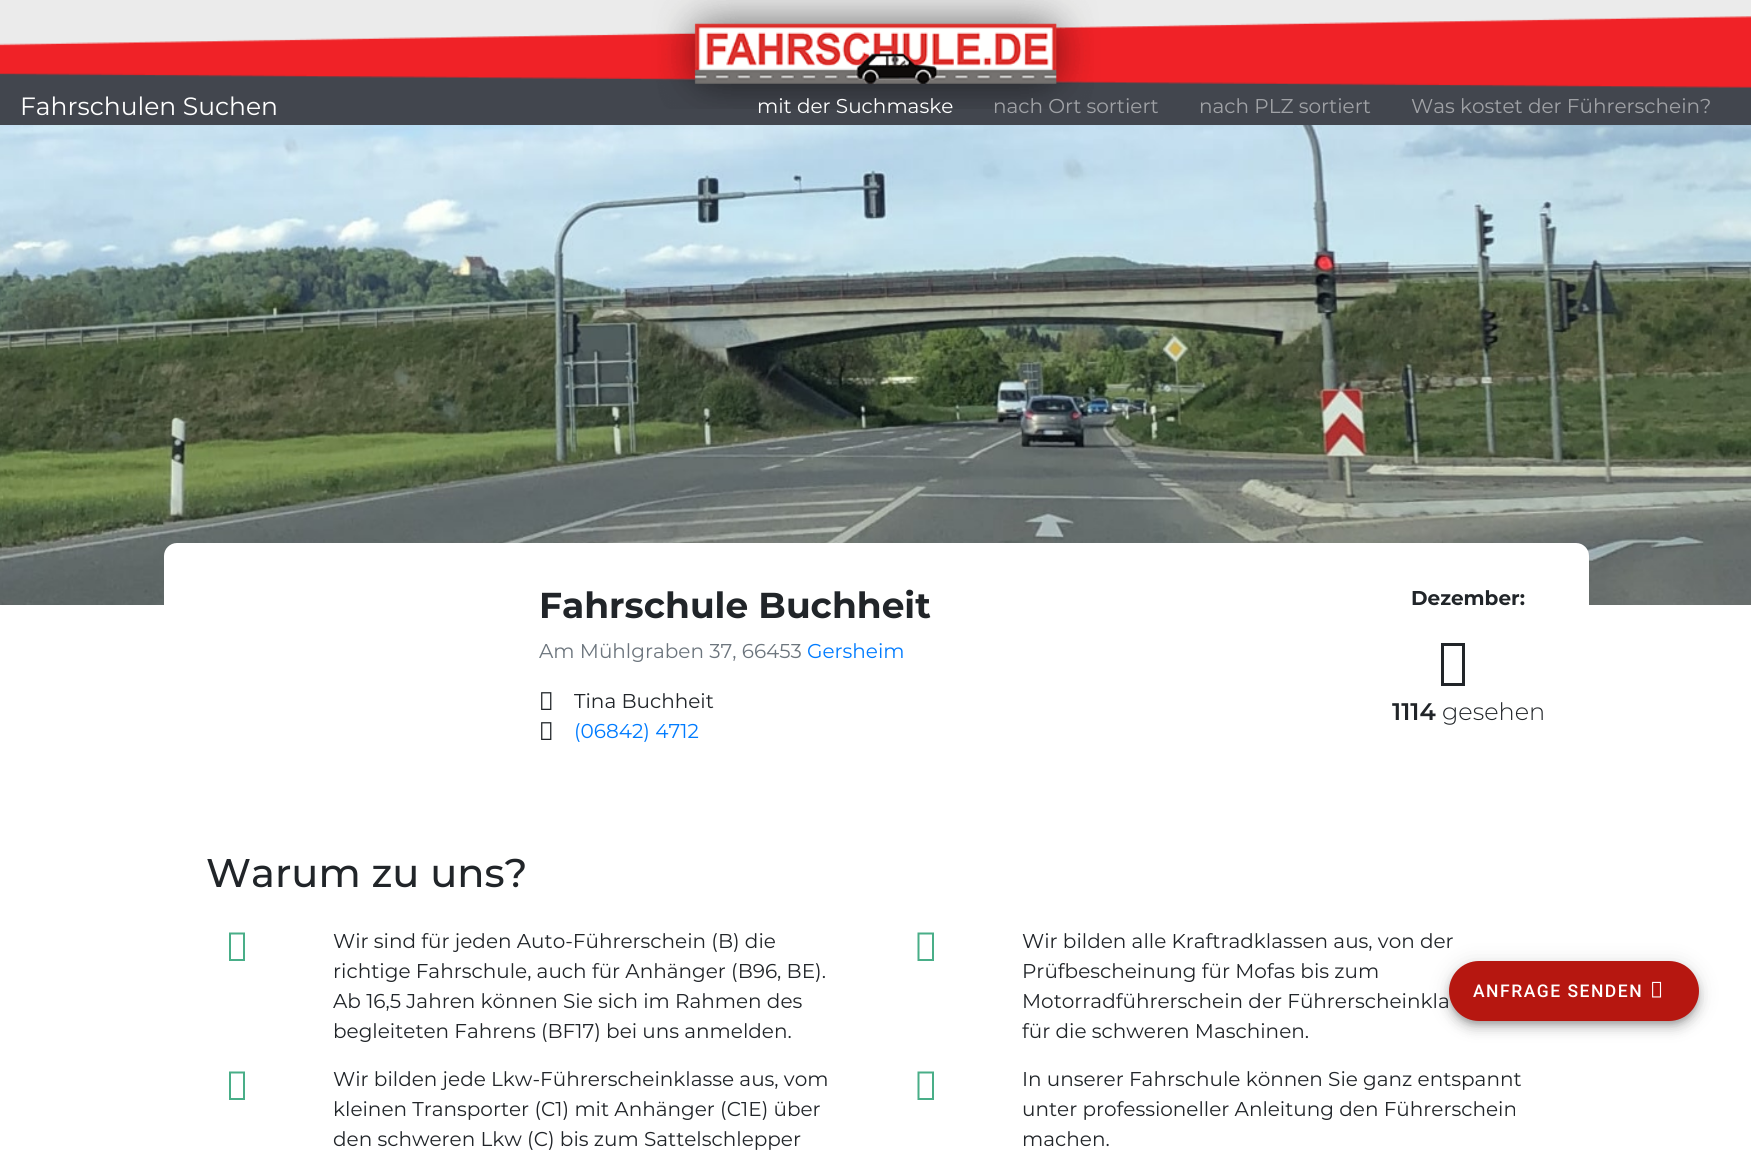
import math
import cairo


def use_color(cr, r, g, b):
  cr.set_source_rgb(r / 255, g / 255, b / 255)

def text(cr, x, y, s, family, size, color, bold=False, italic=False):
  cr.select_font_face(family, cairo.FONT_SLANT_ITALIC if italic else cairo.FONT_SLANT_NORMAL, cairo.FONT_WEIGHT_BOLD if bold else cairo.FONT_WEIGHT_NORMAL)
  cr.set_font_size(size)
  use_color(cr, *color)
  cr.move_to(x, y)
  cr.show_text(s)

def spaced_text(cr, x, y, s, letter, word):
  cr.move_to(x, y)
  for ch in s:
    cr.show_text(ch)
    cr.rel_move_to(letter + word * (ch == ' '), 0)

def box(cr, x, y, w, h, *color):
  use_color(cr, *color)
  cr.rectangle(x, y, w, h)
  cr.fill()

def round_rect(cr, x, y, w, h, r):
  cr.new_sub_path()
  for i, (u, v) in enumerate([(x + w - r, y + h - r), (x + r, y + h - r), (x + r, y + r), (x + w - r, y + r)]):
    cr.arc(u, v, r, i * math.pi / 2, (i + 1) * math.pi / 2)
  cr.close_path()

def shadow(cr, x, y, w, h, r, blur, alpha):
  cr.push_group_with_content(cairo.CONTENT_ALPHA)
  cr.set_operator(cairo.OPERATOR_SOURCE)
  for i in range(15, -16, -2):
    e = blur * i / 6
    if min(w, h) + 2 * e > 0:
      cr.set_source_rgba(0, 0, 0, alpha * math.erfc((i - 1) / 8.5) / 2)
      round_rect(cr, x - e, y - e, w + 2 * e, h + 2 * e, max(0, min(r + e + blur * .6, min(w, h) / 2 + e)))
      cr.fill()
  cr.mask(cr.pop_group())

def picture(cr, path, x, y, w, h):
  cr.save()
  cr.set_source_surface(cairo.ImageSurface.create_from_png(path), x, y)
  cr.rectangle(x, y, w, h)
  cr.fill()
  cr.restore()

def draw(cr):
  use_color(cr, 255, 255, 255)
  cr.paint()
  box(cr, 0, 109, 1751, 16, 66, 70, 78)
  picture(cr, "img_01.png", 0, 0, 1751, 109)
  picture(cr, "img_02.png", 0, 125, 1751, 480)
  use_color(cr, 255, 255, 255)
  round_rect(cr, 164, 543, 1425, 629, 13)
  cr.fill()
  picture(cr, "img_03.png", 541, 692, 11, 18)
  picture(cr, "img_03.png", 541, 722, 11, 18)
  use_color(cr, 33, 37, 41)
  cr.new_path()
  cr.move_to(1441, 686)
  cr.line_to(1441, 643)
  cr.line_to(1465, 643)
  cr.line_to(1465, 686)
  cr.close_path()
  cr.move_to(1444, 683)
  cr.line_to(1462, 683)
  cr.line_to(1462, 646)
  cr.line_to(1444, 646)
  cr.close_path()
  cr.fill()
  use_color(cr, 73, 174, 136)
  cr.new_path()
  cr.move_to(229, 961)
  cr.line_to(229, 932.5)
  cr.line_to(245, 932.5)
  cr.line_to(245, 961)
  cr.close_path()
  cr.move_to(231, 959)
  cr.line_to(243, 959)
  cr.line_to(243, 934.5)
  cr.line_to(231, 934.5)
  cr.close_path()
  cr.fill()
  cr.new_path()
  cr.move_to(917.5, 961)
  cr.line_to(917.5, 932.5)
  cr.line_to(934, 932.5)
  cr.line_to(934, 961)
  cr.close_path()
  cr.move_to(919.5, 959)
  cr.line_to(932, 959)
  cr.line_to(932, 934.5)
  cr.line_to(919.5, 934.5)
  cr.close_path()
  cr.fill()
  cr.new_path()
  cr.move_to(229, 1100)
  cr.line_to(229, 1071.5)
  cr.line_to(245, 1071.5)
  cr.line_to(245, 1100)
  cr.close_path()
  cr.move_to(231, 1098)
  cr.line_to(243, 1098)
  cr.line_to(243, 1073.5)
  cr.line_to(231, 1073.5)
  cr.close_path()
  cr.fill()
  cr.new_path()
  cr.move_to(917.5, 1100)
  cr.line_to(917.5, 1071.5)
  cr.line_to(934, 1071.5)
  cr.line_to(934, 1100)
  cr.close_path()
  cr.move_to(919.5, 1098)
  cr.line_to(932, 1098)
  cr.line_to(932, 1073.5)
  cr.line_to(919.5, 1073.5)
  cr.close_path()
  cr.fill()
  use_color(cr, 0, 0, 0)
  shadow(cr, 1449, 963, 250, 60, 30, 11, 0.12)
  shadow(cr, 1449, 969, 250, 60, 30, 6, 0.14)
  shadow(cr, 1450, 966, 248, 58, 29, 3, 0.2)
  use_color(cr, 182, 23, 16)
  round_rect(cr, 1449, 961, 250, 60, 30)
  cr.fill()
  picture(cr, "img_04.png", 1652, 981, 10, 17)
  text(cr, 20, 115, "Fahrschulen Suchen", "Montserrat", 25, (255, 255, 255))
  text(cr, 757, 113, "mit der Suchmaske", "Montserrat", 20, (255, 255, 255))
  text(cr, 993, 113, "nach Ort sortiert", "Montserrat", 20, (160, 162, 166))
  text(cr, 1199, 113, "nach PLZ sortiert", "Montserrat", 20, (160, 162, 166))
  text(cr, 1411, 113, "Was kostet der Führerschein?", "Montserrat", 20, (160, 162, 166))
  text(cr, 539, 618, "Fahrschule Buchheit", "Montserrat", 36, (33, 37, 41), bold=True)
  text(cr, 539, 658, "Am Mühlgraben 37, 66453", "Montserrat", 20, (108, 117, 125))
  text(cr, 807, 658, "Gersheim", "Montserrat", 20, (0, 123, 255))
  text(cr, 574, 708, "Tina Buchheit", "Montserrat", 20, (33, 37, 41))
  text(cr, 574, 738, "(06842) 4712", "Montserrat", 20, (0, 123, 255))
  text(cr, 1411, 605, "Dezember:", "Montserrat", 20, (33, 37, 41), bold=True)
  text(cr, 1392, 720, "1114", "Montserrat SemiBold", 24, (33, 37, 41))
  text(cr, 1442, 720, "gesehen", "Montserrat Light", 24, (33, 37, 41))
  text(cr, 206, 887, "Warum zu uns?", "Montserrat Medium", 40, (33, 37, 41))
  text(cr, 333, 948, "Wir sind für jeden Auto-Führerschein (B) die", "Montserrat", 20, (33, 37, 41))
  text(cr, 333, 978, "richtige Fahrschule, auch für Anhänger (B96, BE).", "Montserrat", 20, (33, 37, 41))
  text(cr, 333, 1008, "Ab 16,5 Jahren können Sie sich im Rahmen des", "Montserrat", 20, (33, 37, 41))
  text(cr, 333, 1038, "begleiteten Fahrens (BF17) bei uns anmelden.", "Montserrat", 20, (33, 37, 41))
  text(cr, 1022, 948, "Wir bilden alle Kraftradklassen aus, von der", "Montserrat", 20, (33, 37, 41))
  text(cr, 1022, 978, "Prüfbescheinung für Mofas bis zum", "Montserrat", 20, (33, 37, 41))
  text(cr, 1022, 1008, "Motorradführerschein der Führerscheinkla", "Montserrat", 20, (33, 37, 41))
  text(cr, 1022, 1038, "für die schweren Maschinen.", "Montserrat", 20, (33, 37, 41))
  text(cr, 333, 1086, "Wir bilden jede Lkw-Führerscheinklasse aus, vom", "Montserrat", 20, (33, 37, 41))
  text(cr, 333, 1116, "kleinen Transporter (C1) mit Anhänger (C1E) über", "Montserrat", 20, (33, 37, 41))
  text(cr, 333, 1146, "den schweren Lkw (C) bis zum Sattelschlepper", "Montserrat", 20, (33, 37, 41))
  text(cr, 1022, 1086, "In unserer Fahrschule können Sie ganz entspannt", "Montserrat", 20, (33, 37, 41))
  text(cr, 1022, 1116, "unter professioneller Anleitung den Führerschein", "Montserrat", 20, (33, 37, 41))
  text(cr, 1022, 1146, "machen.", "Montserrat", 20, (33, 37, 41))
  cr.select_font_face("Roboto Medium")
  cr.set_font_size(17.5)
  use_color(cr, 255, 255, 255)
  spaced_text(cr, 1473, 997, "ANFRAGE SENDEN", 1.5, 0)


surface = cairo.ImageSurface(cairo.FORMAT_RGB24, 1751, 1159)
cr = cairo.Context(surface)
options = cairo.FontOptions()
options.set_hint_metrics(cairo.HINT_METRICS_OFF)
options.set_hint_style(cairo.HINT_STYLE_NONE)
cr.set_font_options(options)
cr.set_miter_limit(4)
draw(cr)
surface.write_to_png("out.png")
